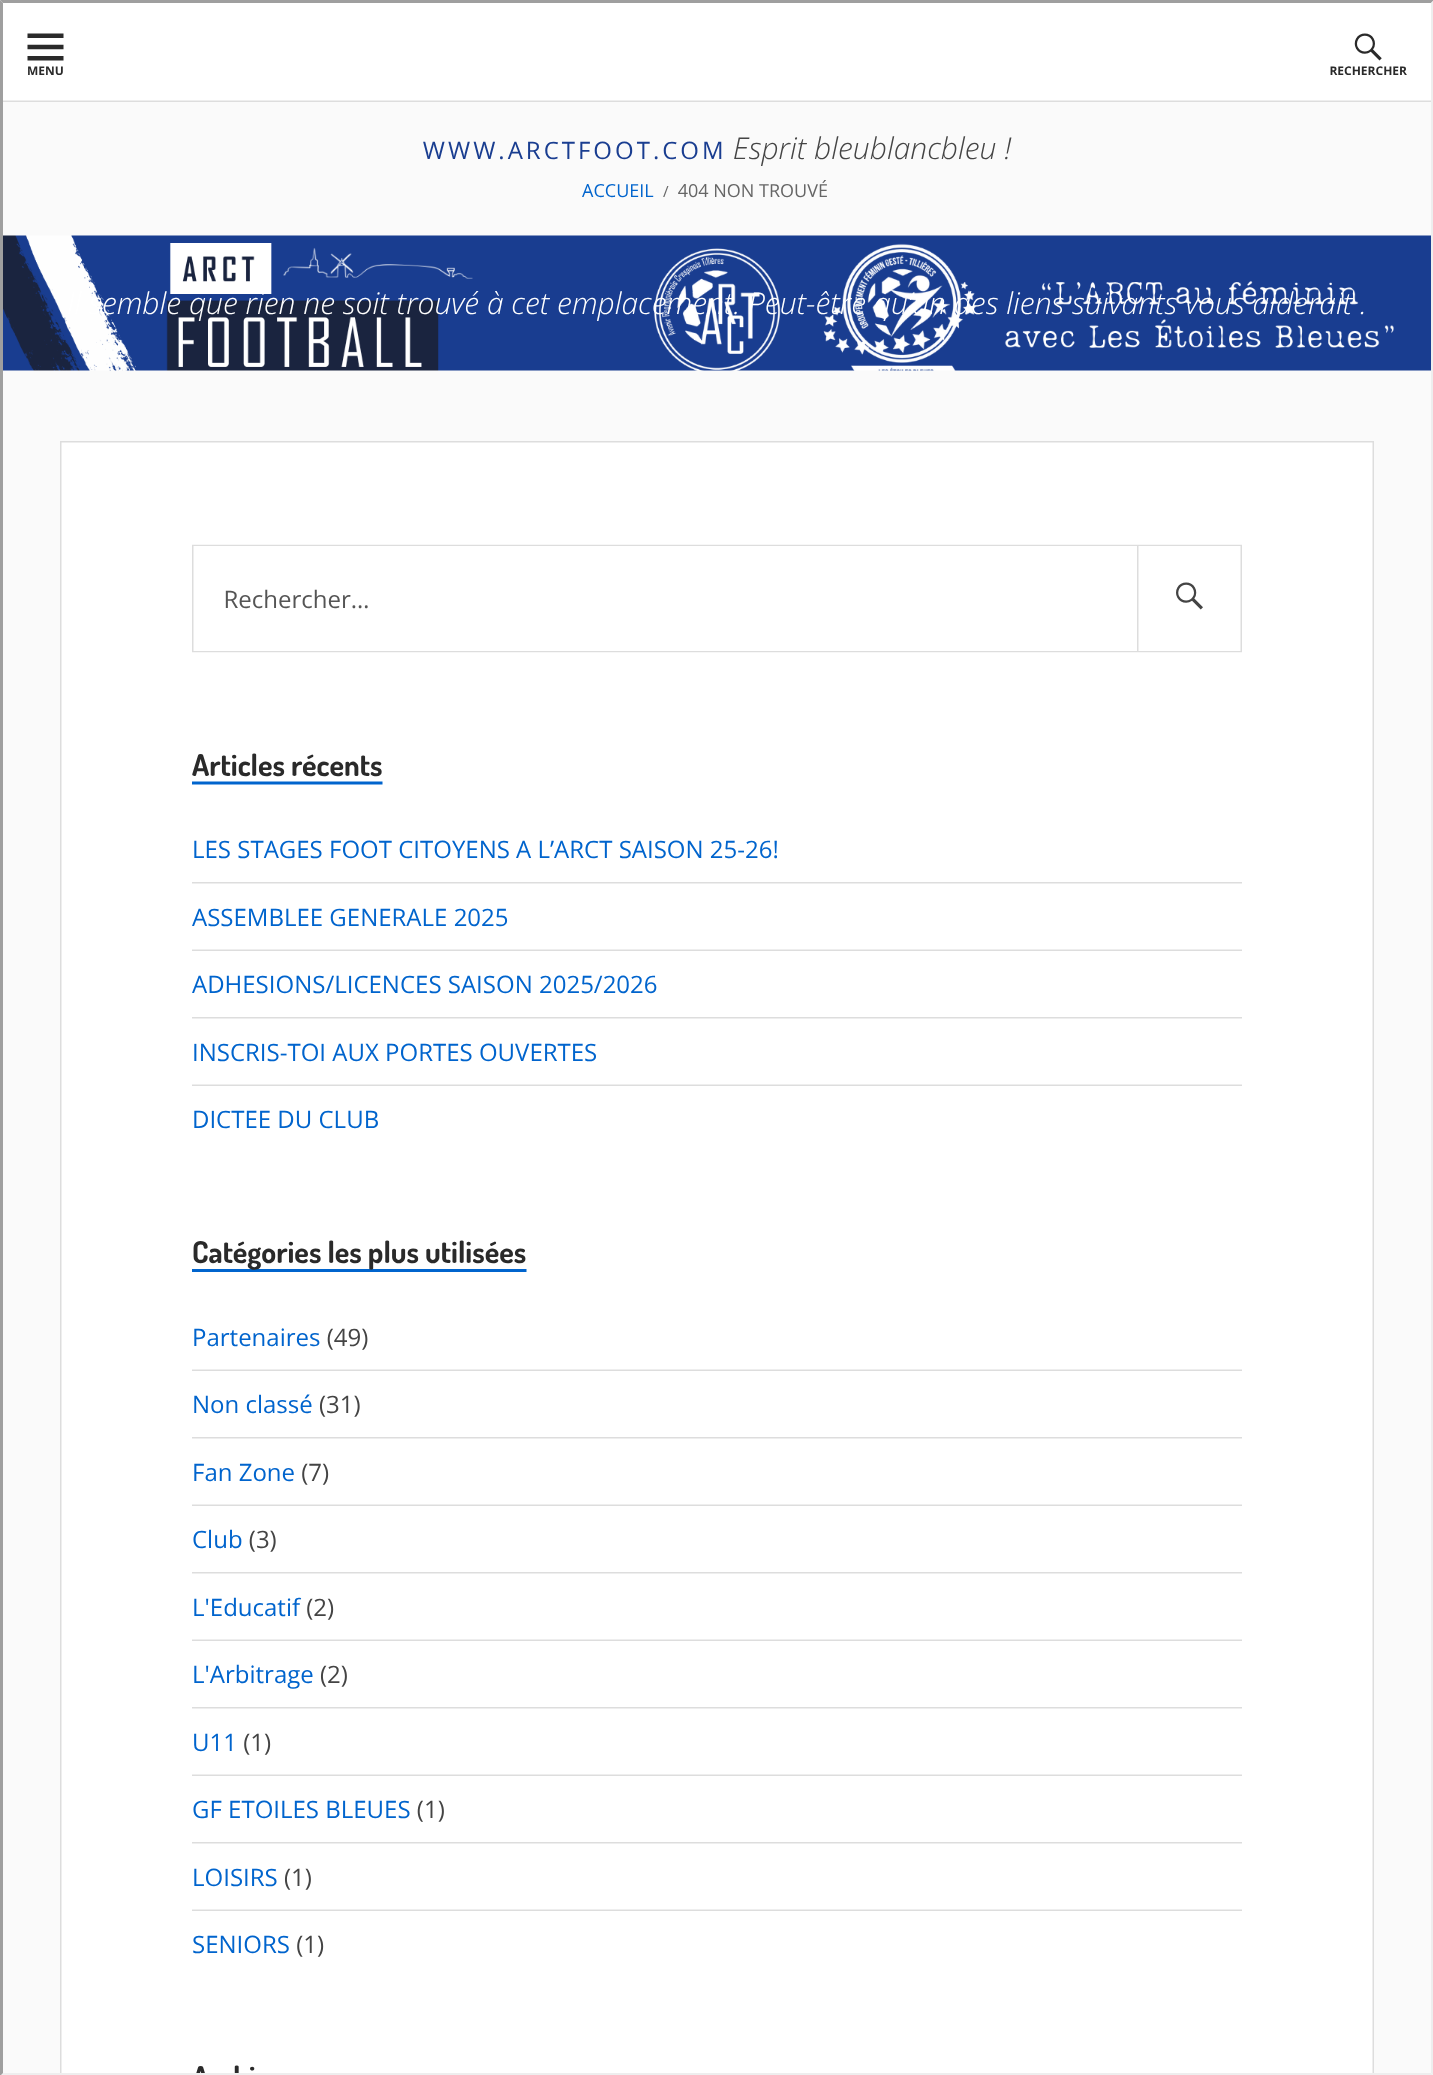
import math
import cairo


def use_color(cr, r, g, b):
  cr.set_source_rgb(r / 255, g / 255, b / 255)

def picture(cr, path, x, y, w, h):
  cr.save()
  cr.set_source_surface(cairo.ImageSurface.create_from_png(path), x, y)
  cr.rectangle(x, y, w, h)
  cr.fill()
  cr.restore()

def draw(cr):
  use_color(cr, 255, 255, 255)
  cr.paint()
  use_color(cr, 159, 159, 159)
  cr.new_path()
  cr.move_to(0, 0)
  cr.line_to(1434, 0)
  cr.line_to(1431, 3)
  cr.line_to(3, 3)
  cr.close_path()
  cr.fill()
  use_color(cr, 238, 238, 238)
  cr.new_path()
  cr.move_to(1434, 0)
  cr.line_to(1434, 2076)
  cr.line_to(1431, 2073)
  cr.line_to(1431, 3)
  cr.close_path()
  cr.fill()
  cr.new_path()
  cr.move_to(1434, 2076)
  cr.line_to(0, 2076)
  cr.line_to(3, 2073)
  cr.line_to(1431, 2073)
  cr.close_path()
  cr.fill()
  use_color(cr, 159, 159, 159)
  cr.new_path()
  cr.move_to(0, 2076)
  cr.line_to(0, 0)
  cr.line_to(3, 3)
  cr.line_to(3, 2073)
  cr.close_path()
  cr.fill()
  picture(cr, "img_01.png", 3, 33, 1428, 2040)


surface = cairo.ImageSurface(cairo.FORMAT_RGB24, 1433, 2075)
cr = cairo.Context(surface)
options = cairo.FontOptions()
options.set_hint_metrics(cairo.HINT_METRICS_OFF)
options.set_hint_style(cairo.HINT_STYLE_NONE)
cr.set_font_options(options)
cr.set_miter_limit(4)
draw(cr)
surface.write_to_png("out.png")
